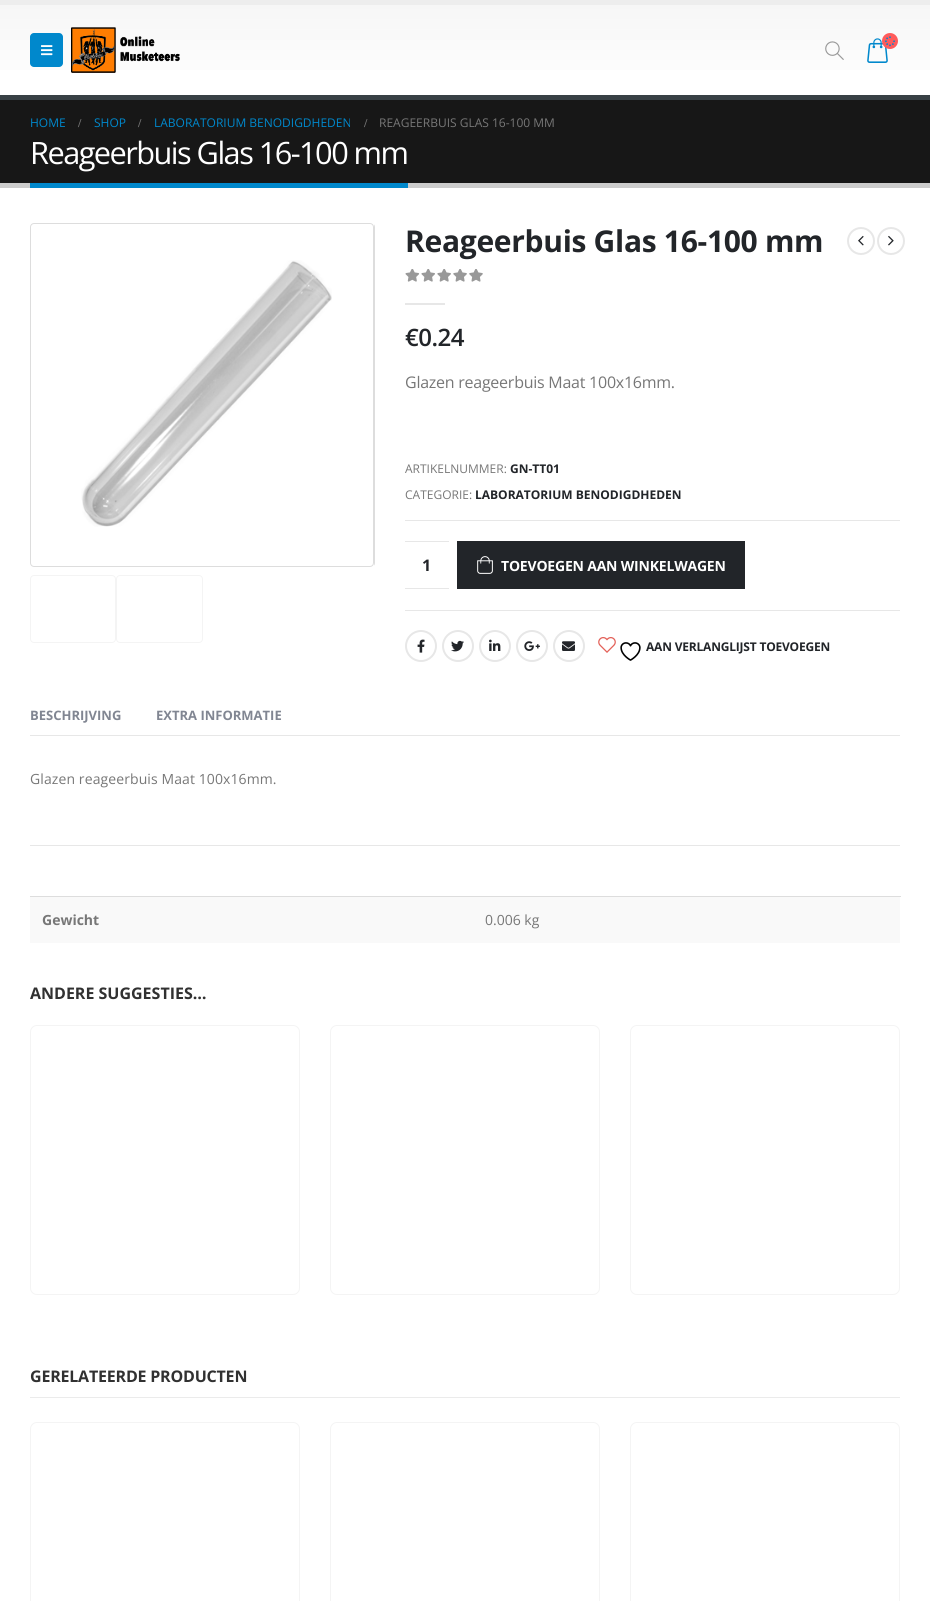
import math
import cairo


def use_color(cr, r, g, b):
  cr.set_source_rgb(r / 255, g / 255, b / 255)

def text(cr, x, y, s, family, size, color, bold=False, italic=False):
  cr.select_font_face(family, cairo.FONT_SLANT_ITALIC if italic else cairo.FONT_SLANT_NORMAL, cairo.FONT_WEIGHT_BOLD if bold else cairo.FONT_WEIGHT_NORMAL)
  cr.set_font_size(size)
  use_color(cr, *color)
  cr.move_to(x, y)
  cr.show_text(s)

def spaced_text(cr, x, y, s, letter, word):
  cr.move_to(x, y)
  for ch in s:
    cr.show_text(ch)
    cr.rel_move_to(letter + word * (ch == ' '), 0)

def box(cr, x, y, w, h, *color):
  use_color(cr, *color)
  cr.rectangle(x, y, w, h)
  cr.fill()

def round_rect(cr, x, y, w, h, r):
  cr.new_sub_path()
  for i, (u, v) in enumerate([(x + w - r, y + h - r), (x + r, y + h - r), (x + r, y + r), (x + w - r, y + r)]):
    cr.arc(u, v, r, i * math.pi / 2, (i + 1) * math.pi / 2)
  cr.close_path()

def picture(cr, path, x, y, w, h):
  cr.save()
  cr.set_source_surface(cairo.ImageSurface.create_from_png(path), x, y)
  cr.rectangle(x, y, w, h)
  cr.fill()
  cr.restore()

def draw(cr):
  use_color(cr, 255, 255, 255)
  cr.paint()
  box(cr, 0, 0, 930, 5, 237, 237, 237)
  gradient = cairo.LinearGradient(465, 5, 465, 95)
  gradient.add_color_stop_rgba(0, 0.965, 0.965, 0.965, 1)
  gradient.add_color_stop_rgba(1, 1, 1, 1, 1)
  cr.set_source(gradient)
  cr.rectangle(0, 5, 930, 65)
  cr.fill()
  use_color(cr, 0, 136, 204)
  round_rect(cr, 30, 33, 33, 34, 4)
  cr.fill()
  picture(cr, "img_01.png", 41, 45, 12, 11)
  picture(cr, "img_02.png", 71, 27, 109, 46)
  picture(cr, "img_03.png", 825, 41, 19, 19)
  picture(cr, "img_04.png", 867, 38, 21, 25)
  use_color(cr, 255, 91, 91)
  cr.arc(890, 41, 8, 0, 2 * math.pi)
  cr.fill()
  picture(cr, "img_05.png", 885, 36, 10, 11)
  box(cr, 0, 100, 930, 83, 23, 23, 23)
  box(cr, 0, 95, 930, 5, 56, 64, 69)
  box(cr, 0, 183, 930, 5, 204, 204, 204)
  box(cr, 30, 183, 378, 5, 0, 136, 204)
  round_rect(cr, 30.5, 223.5, 343, 343, 3.5)
  use_color(cr, 221, 221, 221)
  cr.set_line_width(1)
  cr.stroke()
  picture(cr, "img_06.png", 81, 260, 251, 267)
  round_rect(cr, 30.5, 575.5, 85, 67, 3.5)
  use_color(cr, 244, 244, 244)
  cr.stroke()
  round_rect(cr, 116.5, 575.5, 86, 67, 3.5)
  cr.stroke()
  cr.arc(861, 241, 13, 0, 2 * math.pi)
  use_color(cr, 231, 231, 231)
  cr.set_line_width(2)
  cr.stroke()
  picture(cr, "img_07.png", 858, 235, 6, 11)
  cr.arc(891, 241, 13, 0, 2 * math.pi)
  cr.stroke()
  picture(cr, "img_08.png", 888, 235, 6, 11)
  picture(cr, "img_09.png", 405, 269, 78, 13)
  box(cr, 405, 303, 40, 2, 231, 231, 231)
  box(cr, 405, 520, 495, 1, 231, 231, 231)
  box(cr, 405, 610, 495, 1, 231, 231, 231)
  box(cr, 405, 541, 44, 1, 231, 231, 231)
  box(cr, 405, 588, 44, 1, 231, 231, 231)
  box(cr, 457, 541, 288, 48, 34, 37, 41)
  picture(cr, "img_10.png", 477, 556, 16, 18)
  cr.arc(421, 646, 15, 0, 2 * math.pi)
  use_color(cr, 231, 231, 231)
  cr.stroke()
  picture(cr, "img_11.png", 417, 639, 8, 14)
  cr.arc(458, 646, 15, 0, 2 * math.pi)
  cr.stroke()
  picture(cr, "img_12.png", 451, 640, 13, 12)
  cr.arc(495, 646, 15, 0, 2 * math.pi)
  cr.stroke()
  picture(cr, "img_13.png", 489, 639, 12, 12)
  cr.arc(532, 646, 15, 0, 2 * math.pi)
  cr.stroke()
  picture(cr, "img_14.png", 524, 641, 16, 10)
  cr.arc(569, 646, 15, 0, 2 * math.pi)
  cr.stroke()
  picture(cr, "img_15.png", 562, 641, 13, 10)
  picture(cr, "img_16.png", 598, 637, 18, 16)
  picture(cr, "img_17.png", 620, 642, 21, 19)
  box(cr, 30, 735, 870, 1, 231, 231, 231)
  box(cr, 30, 845, 870, 1, 231, 231, 231)
  box(cr, 30, 897, 870, 46, 249, 249, 249)
  box(cr, 30, 896, 871, 1, 221, 221, 221)
  round_rect(cr, 30.5, 1025.5, 269, 269, 6.5)
  use_color(cr, 244, 244, 244)
  cr.set_line_width(1)
  cr.stroke()
  round_rect(cr, 330.5, 1025.5, 269, 269, 6.5)
  cr.stroke()
  round_rect(cr, 630.5, 1025.5, 269, 269, 6.5)
  cr.stroke()
  box(cr, 30, 1397, 870, 1, 235, 235, 235)
  round_rect(cr, 30.5, 1422.5, 269, 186, 6.5)
  use_color(cr, 244, 244, 244)
  cr.stroke()
  round_rect(cr, 330.5, 1422.5, 269, 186, 6.5)
  cr.stroke()
  round_rect(cr, 630.5, 1422.5, 269, 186, 6.5)
  cr.stroke()
  text(cr, 30, 127, "HOME", "Open Sans", 12, (0, 136, 204))
  text(cr, 78, 127, "/", "Liberation Serif", 12, (119, 119, 119), bold=True)
  text(cr, 94, 127, "SHOP", "Open Sans", 12, (0, 136, 204))
  text(cr, 138, 127, "/", "Liberation Serif", 12, (119, 119, 119), bold=True)
  text(cr, 154, 127, "LABORATORIUM BENODIGDHEDEN", "Open Sans", 12, (0, 136, 204))
  text(cr, 364, 127, "/", "Liberation Serif", 12, (119, 119, 119), bold=True)
  text(cr, 379, 127, "REAGEERBUIS GLAS 16-100 MM", "Open Sans", 12, (119, 119, 119))
  cr.set_font_size(30.75)
  use_color(cr, 255, 255, 255)
  spaced_text(cr, 30, 164, "Reageerbuis Glas 16-100 mm", -1.55, 0)
  cr.select_font_face("Open Sans", cairo.FONT_SLANT_NORMAL, cairo.FONT_WEIGHT_BOLD)
  cr.set_font_size(30)
  use_color(cr, 34, 37, 41)
  spaced_text(cr, 405, 252, "Reageerbuis Glas 16-100 mm", -0.3, 0)
  cr.select_font_face("Open Sans SemiBold")
  cr.set_font_size(24)
  spaced_text(cr, 405, 346, "€0.24", -0.5, 0)
  cr.select_font_face("Open Sans")
  cr.set_font_size(16)
  use_color(cr, 119, 119, 119)
  spaced_text(cr, 405, 388, "Glazen reageerbuis Maat 100x16mm.", -0.25, 0)
  text(cr, 405, 473, "ARTIKELNUMMER:", "Open Sans", 12, (119, 119, 119))
  text(cr, 510, 473, "GN-TT01", "Open Sans", 12, (34, 37, 41), bold=True)
  text(cr, 405, 499, "CATEGORIE:", "Open Sans", 12, (119, 119, 119))
  text(cr, 475, 499, "LABORATORIUM BENODIGDHEDEN", "Open Sans", 12, (34, 37, 41), bold=True)
  text(cr, 422, 571, "1", "Open Sans", 16, (34, 37, 41), bold=True)
  cr.set_font_size(14)
  use_color(cr, 255, 255, 255)
  spaced_text(cr, 501, 571, "TOEVOEGEN AAN WINKELWAGEN", -0.2, 0)
  cr.save()
  cr.rectangle(30, 223, 345, 344)
  cr.clip()
  round_rect(cr, 374.5, 223.5, 344, 343, 3.5)
  use_color(cr, 221, 221, 221)
  cr.stroke()
  cr.restore()
  cr.set_font_size(12)
  use_color(cr, 34, 37, 41)
  spaced_text(cr, 646, 651, "AAN VERLANGLIJST TOEVOEGEN", -0.2, 0)
  text(cr, 30, 720, "BESCHRIJVING", "Open Sans", 13, (129, 134, 146), bold=True)
  text(cr, 156, 720, "EXTRA INFORMATIE", "Open Sans", 13, (129, 134, 146), bold=True)
  cr.select_font_face("Open Sans")
  cr.set_font_size(14)
  use_color(cr, 119, 119, 119)
  spaced_text(cr, 30, 784, "Glazen reageerbuis Maat 100x16mm.", 0.1, 0)
  text(cr, 42, 925, "Gewicht", "Open Sans", 14, (119, 119, 119), bold=True)
  text(cr, 485, 925, "0.006 kg", "Open Sans", 14, (119, 119, 119))
  text(cr, 30, 999, "ANDERE SUGGESTIES…", "Open Sans", 16, (49, 49, 49), bold=True)
  spaced_text(cr, 30, 1382, "GERELATEERDE PRODUCTEN", -0.2, 0)


surface = cairo.ImageSurface(cairo.FORMAT_RGB24, 930, 1601)
cr = cairo.Context(surface)
options = cairo.FontOptions()
options.set_hint_metrics(cairo.HINT_METRICS_OFF)
options.set_hint_style(cairo.HINT_STYLE_NONE)
cr.set_font_options(options)
cr.set_miter_limit(4)
draw(cr)
surface.write_to_png("out.png")
